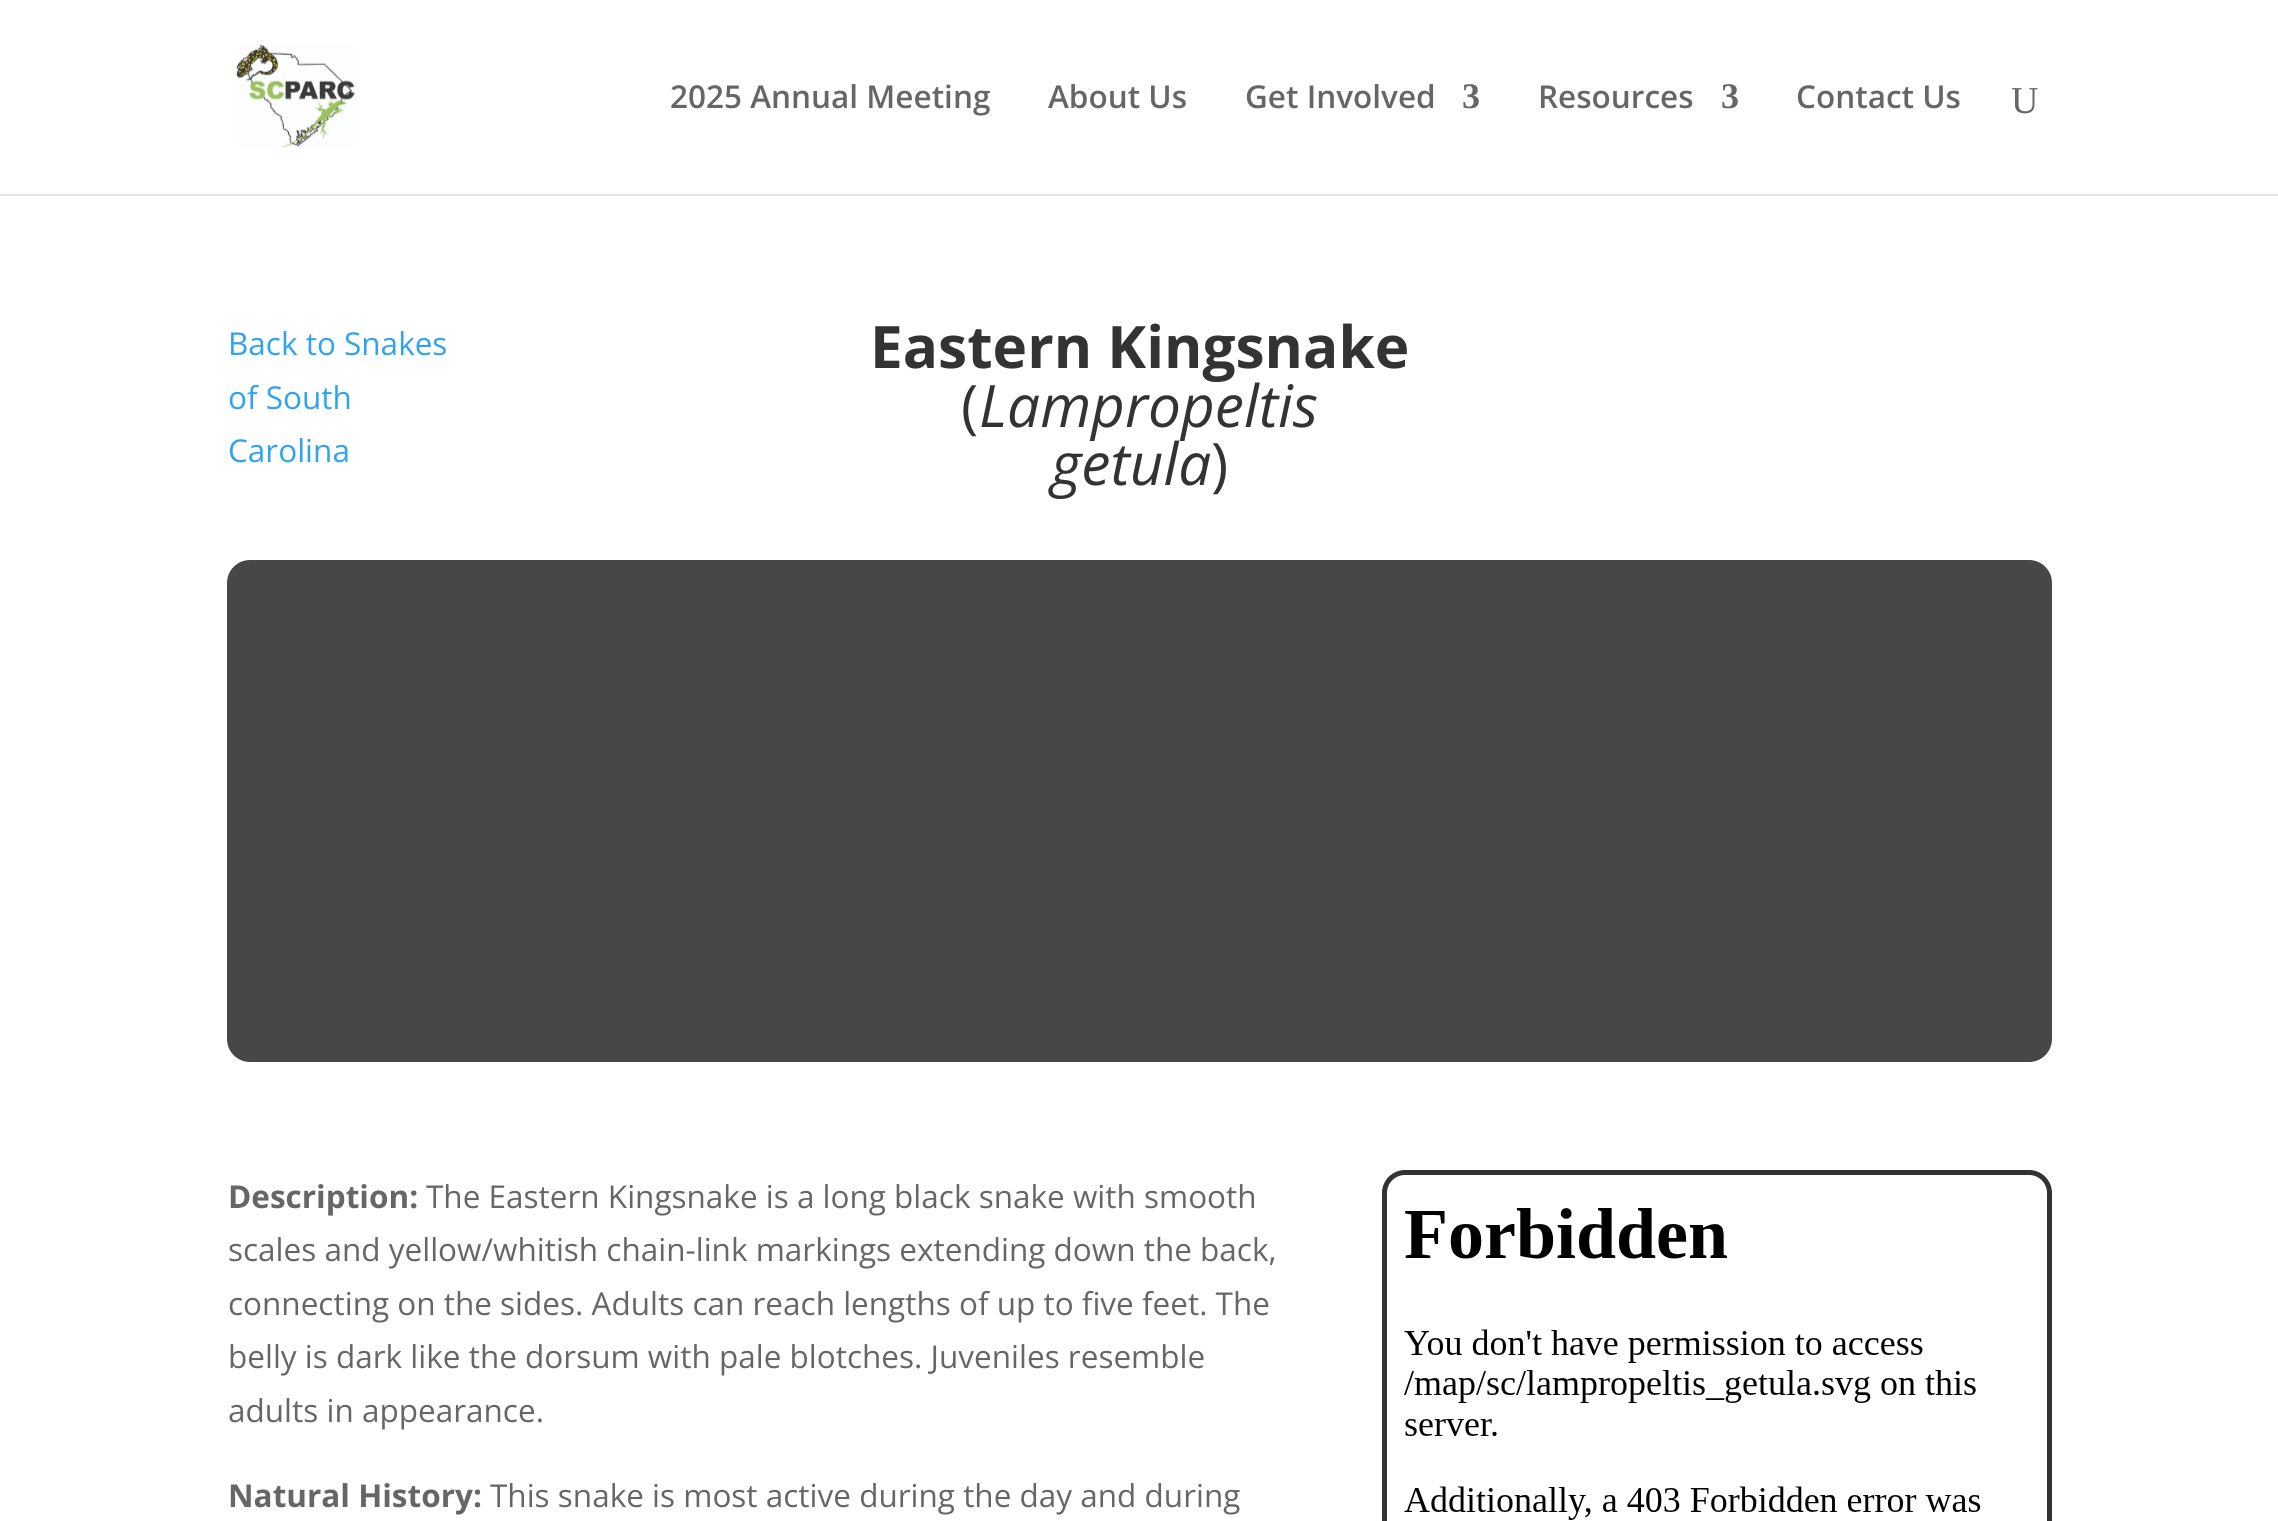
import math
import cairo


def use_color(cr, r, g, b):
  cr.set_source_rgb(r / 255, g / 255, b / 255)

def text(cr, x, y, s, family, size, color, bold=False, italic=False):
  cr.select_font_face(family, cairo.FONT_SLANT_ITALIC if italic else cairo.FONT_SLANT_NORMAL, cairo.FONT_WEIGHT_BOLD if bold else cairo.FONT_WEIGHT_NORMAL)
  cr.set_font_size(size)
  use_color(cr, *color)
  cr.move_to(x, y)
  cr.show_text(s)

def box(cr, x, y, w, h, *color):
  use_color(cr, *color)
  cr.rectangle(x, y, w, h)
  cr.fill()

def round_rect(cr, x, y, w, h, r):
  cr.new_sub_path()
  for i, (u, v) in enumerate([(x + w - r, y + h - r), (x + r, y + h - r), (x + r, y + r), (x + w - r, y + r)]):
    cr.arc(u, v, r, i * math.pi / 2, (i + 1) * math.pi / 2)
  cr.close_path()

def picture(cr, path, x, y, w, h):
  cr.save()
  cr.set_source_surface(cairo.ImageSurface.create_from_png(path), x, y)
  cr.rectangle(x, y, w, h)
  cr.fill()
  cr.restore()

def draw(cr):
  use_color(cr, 255, 255, 255)
  cr.paint()
  box(cr, 0, 194, 2278, 2, 230, 230, 230)
  picture(cr, "img_01.png", 236, 44, 119, 104)
  use_color(cr, 71, 71, 71)
  round_rect(cr, 227, 560, 1825, 502, 23)
  cr.fill()
  round_rect(cr, 1384.5, 1172.5, 665, 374, 20.5)
  use_color(cr, 51, 51, 51)
  cr.set_line_width(5)
  cr.stroke()
  picture(cr, "img_02.png", 1404, 1208, 577, 312)
  text(cr, 670, 108, "2025 Annual Meeting", "Open Sans SemiBold", 31.5, (102, 102, 102))
  text(cr, 1048, 108, "About Us", "Open Sans SemiBold", 31.5, (102, 102, 102))
  text(cr, 1245, 108, "Get Involved", "Open Sans SemiBold", 31.5, (102, 102, 102))
  text(cr, 1462, 108, "3", "Liberation Serif", 36, (102, 102, 102), bold=True)
  text(cr, 1538, 108, "Resources", "Open Sans SemiBold", 31.5, (102, 102, 102))
  text(cr, 1721, 108, "3", "Liberation Serif", 36, (102, 102, 102), bold=True)
  text(cr, 1796, 108, "Contact Us", "Open Sans SemiBold", 31.5, (102, 102, 102))
  text(cr, 2011, 113, "U", "Liberation Serif", 38, (102, 102, 102))
  text(cr, 228, 355, "Back to Snakes", "Open Sans", 31.5, (46, 163, 242))
  text(cr, 228, 409, "of South", "Open Sans", 31.5, (46, 163, 242))
  text(cr, 228, 462, "Carolina", "Open Sans", 31.5, (46, 163, 242))
  text(cr, 870, 368, "Eastern Kingsnake", "Open Sans", 58.5, (51, 51, 51), bold=True)
  text(cr, 961, 427, "(", "Open Sans", 58.5, (51, 51, 51))
  text(cr, 979, 427, "Lampropeltis", "Open Sans", 58.5, (51, 51, 51), italic=True)
  text(cr, 1051, 485, "getula", "Open Sans", 58.5, (51, 51, 51), italic=True)
  text(cr, 1211, 485, ")", "Open Sans", 58.5, (51, 51, 51))
  text(cr, 228, 1208, "Description:", "Open Sans", 31.5, (102, 102, 102), bold=True)
  text(cr, 426, 1208, "The Eastern Kingsnake is a long black snake with smooth", "Open Sans", 31.5, (102, 102, 102))
  text(cr, 228, 1261, "scales and yellow/whitish chain-link markings extending down the back,", "Open Sans", 31.5, (102, 102, 102))
  text(cr, 228, 1315, "connecting on the sides. Adults can reach lengths of up to five feet. The", "Open Sans", 31.5, (102, 102, 102))
  text(cr, 228, 1368, "belly is dark like the dorsum with pale blotches. Juveniles resemble", "Open Sans", 31.5, (102, 102, 102))
  text(cr, 228, 1422, "adults in appearance.", "Open Sans", 31.5, (102, 102, 102))
  text(cr, 228, 1507, "Natural History:", "Open Sans", 31.5, (102, 102, 102), bold=True)
  text(cr, 490, 1507, "This snake is most active during the day and during", "Open Sans", 31.5, (102, 102, 102))


surface = cairo.ImageSurface(cairo.FORMAT_RGB24, 2278, 1521)
cr = cairo.Context(surface)
options = cairo.FontOptions()
options.set_hint_metrics(cairo.HINT_METRICS_OFF)
options.set_hint_style(cairo.HINT_STYLE_NONE)
cr.set_font_options(options)
cr.set_miter_limit(4)
draw(cr)
surface.write_to_png("out.png")
